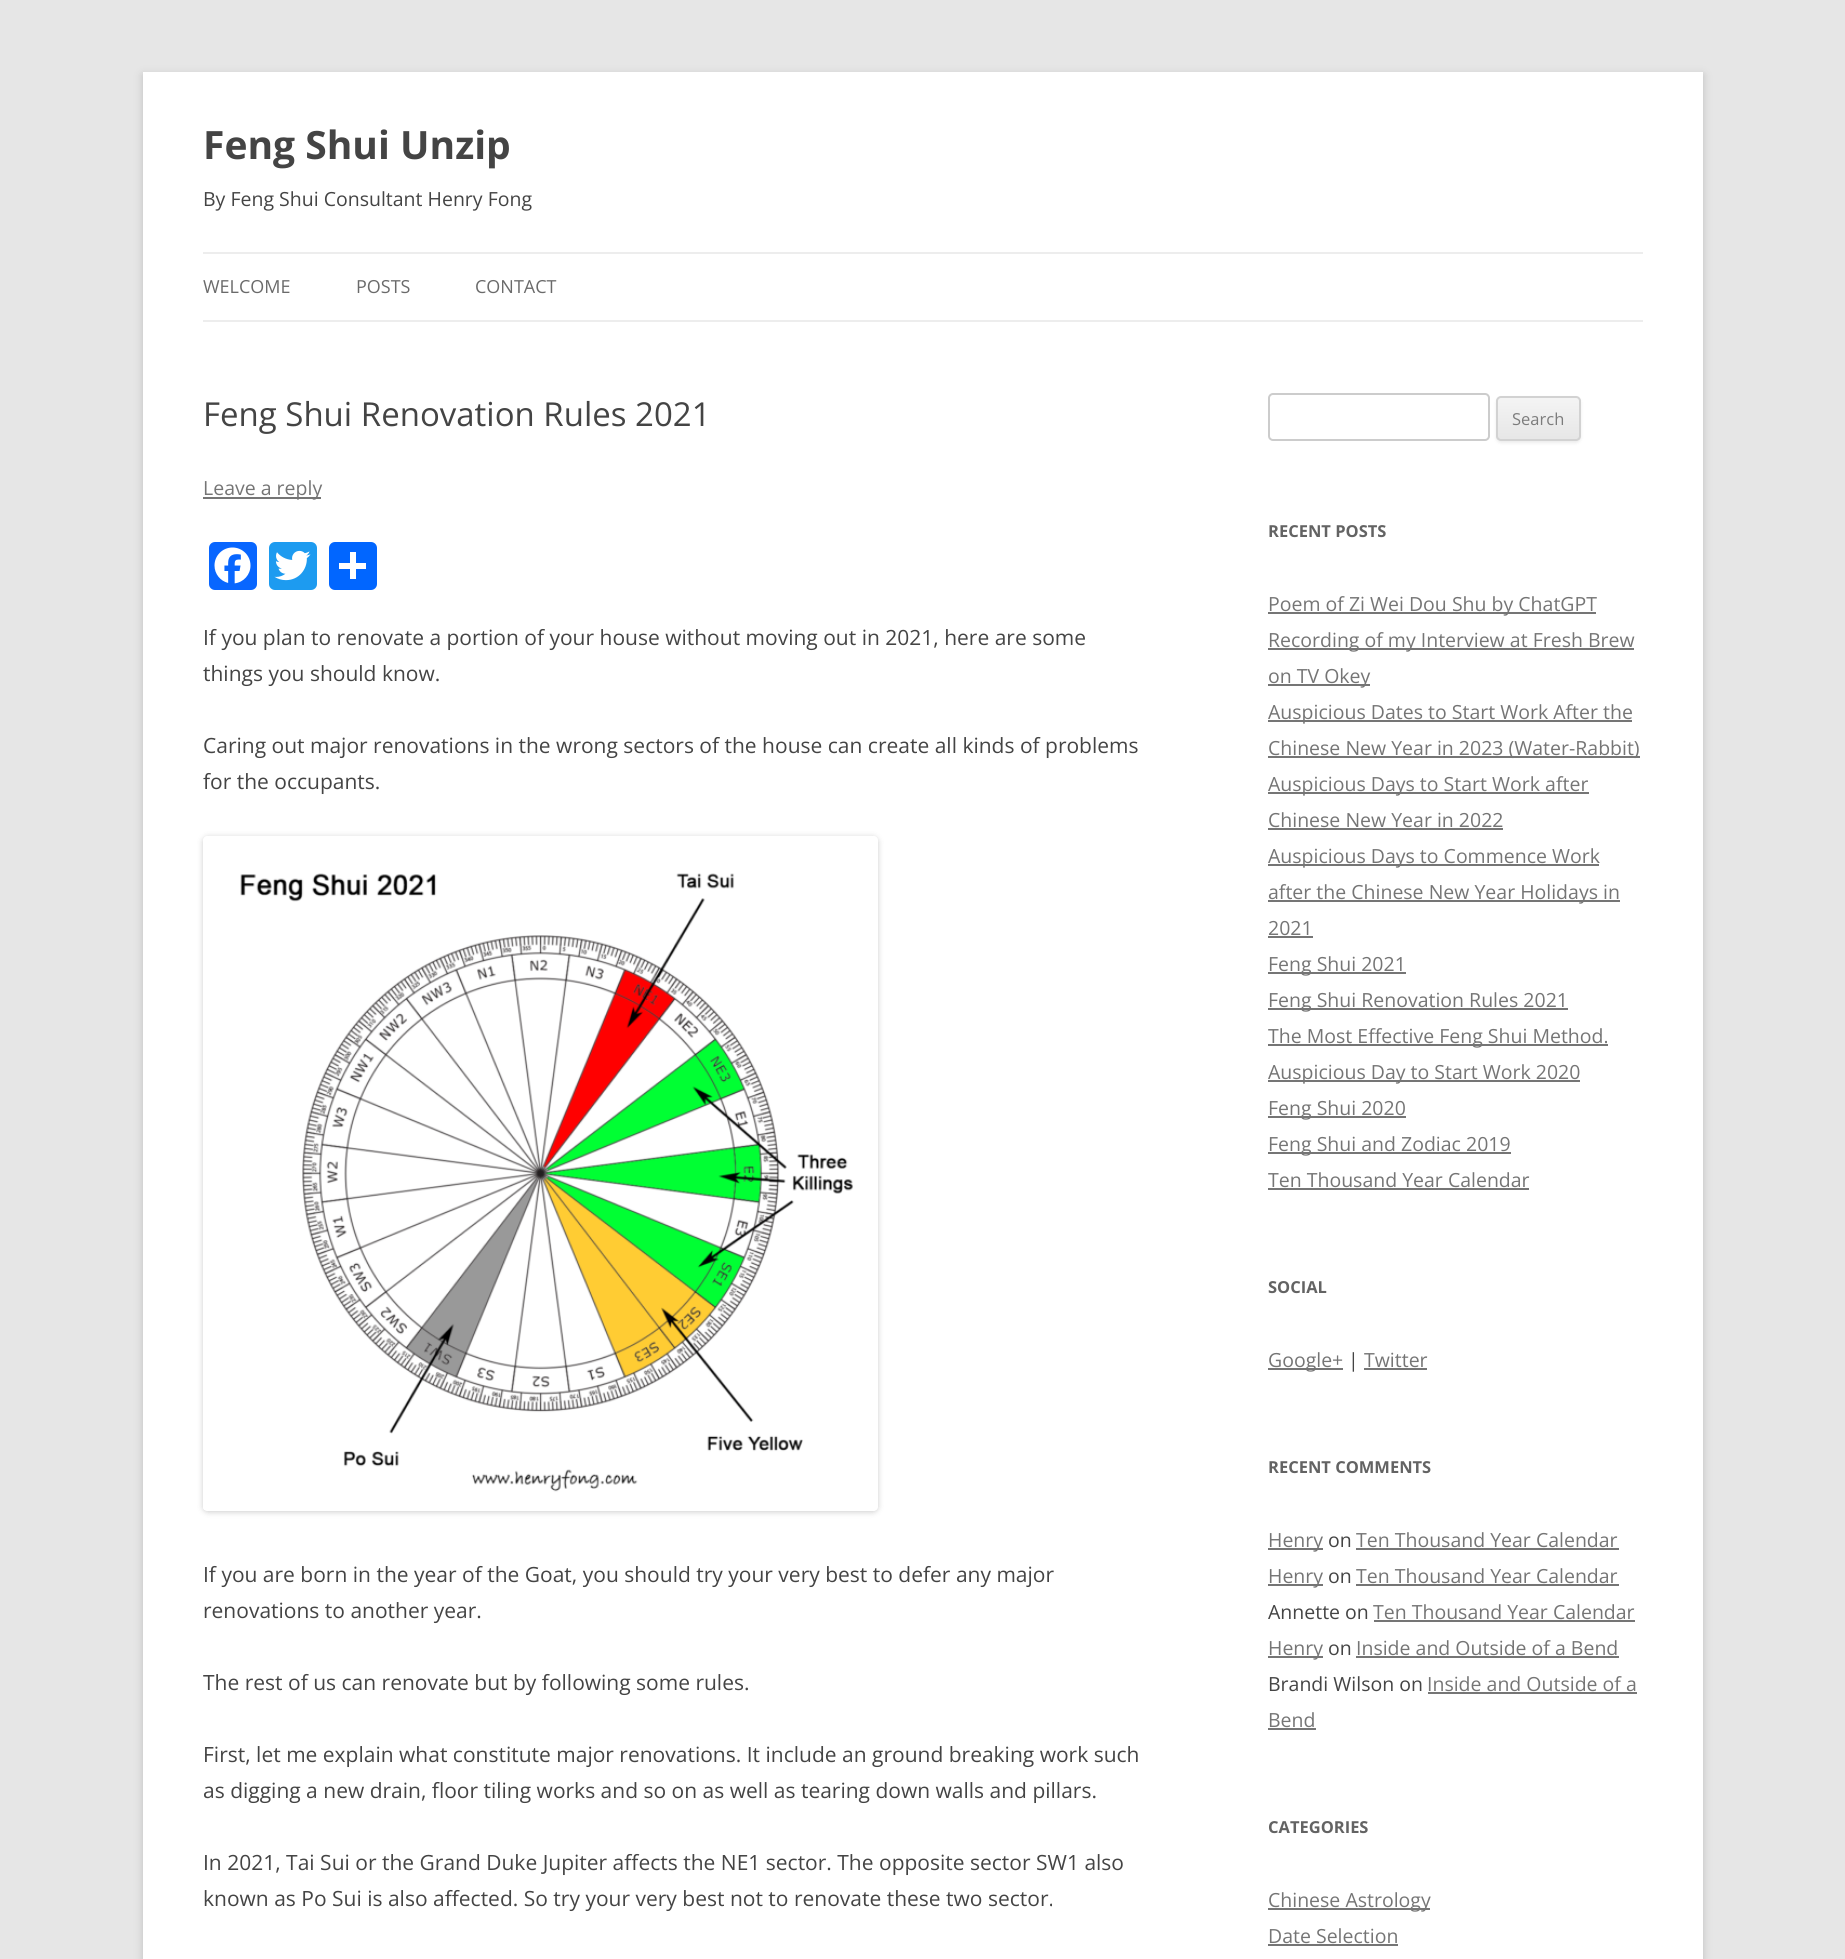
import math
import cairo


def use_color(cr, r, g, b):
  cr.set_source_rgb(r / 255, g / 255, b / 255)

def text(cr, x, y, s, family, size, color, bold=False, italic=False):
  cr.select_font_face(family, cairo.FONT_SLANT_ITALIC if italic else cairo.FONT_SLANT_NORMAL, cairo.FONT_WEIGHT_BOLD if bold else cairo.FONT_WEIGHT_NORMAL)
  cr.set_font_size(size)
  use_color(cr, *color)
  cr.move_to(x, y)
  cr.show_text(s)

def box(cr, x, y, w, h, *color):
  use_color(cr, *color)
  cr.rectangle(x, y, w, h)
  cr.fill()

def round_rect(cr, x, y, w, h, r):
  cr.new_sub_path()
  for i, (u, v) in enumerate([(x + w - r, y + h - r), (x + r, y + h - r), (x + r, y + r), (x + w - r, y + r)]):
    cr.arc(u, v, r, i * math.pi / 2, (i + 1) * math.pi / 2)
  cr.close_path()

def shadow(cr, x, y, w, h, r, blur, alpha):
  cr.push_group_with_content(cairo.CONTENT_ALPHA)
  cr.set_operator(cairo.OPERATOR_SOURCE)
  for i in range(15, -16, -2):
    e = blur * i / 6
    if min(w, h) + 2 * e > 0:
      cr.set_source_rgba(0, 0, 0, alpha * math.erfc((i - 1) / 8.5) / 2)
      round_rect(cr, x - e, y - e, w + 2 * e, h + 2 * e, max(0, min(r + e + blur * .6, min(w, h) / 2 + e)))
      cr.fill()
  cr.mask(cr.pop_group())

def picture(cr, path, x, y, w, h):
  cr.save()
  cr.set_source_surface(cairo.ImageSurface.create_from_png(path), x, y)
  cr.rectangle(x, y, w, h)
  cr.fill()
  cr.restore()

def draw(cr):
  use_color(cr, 230, 230, 230)
  cr.paint()
  use_color(cr, 100, 100, 100)
  shadow(cr, 143, 75, 1560, 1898, 0, 4.5, 0.3)
  box(cr, 143, 72, 1560, 1887, 255, 255, 255)
  box(cr, 203, 252, 1440, 2, 237, 237, 237)
  box(cr, 203, 320, 1440, 2, 237, 237, 237)
  box(cr, 203, 497, 118, 2, 117, 117, 117)
  use_color(cr, 8, 102, 255)
  round_rect(cr, 209, 542, 48, 48, 6)
  cr.fill()
  picture(cr, "img_01.png", 214, 547, 37, 37)
  use_color(cr, 29, 155, 240)
  round_rect(cr, 269, 542, 48, 48, 6)
  cr.fill()
  picture(cr, "img_02.png", 274, 550, 37, 31)
  use_color(cr, 1, 102, 255)
  round_rect(cr, 329, 542, 48, 48, 6)
  cr.fill()
  box(cr, 350, 552, 6, 27, 255, 255, 255)
  box(cr, 339, 563, 27, 6, 255, 255, 255)
  cr.save()
  cr.set_fill_rule(cairo.FILL_RULE_EVEN_ODD)
  cr.new_path()
  cr.move_to(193, 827)
  cr.line_to(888, 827)
  cr.line_to(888, 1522)
  cr.line_to(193, 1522)
  cr.close_path()
  cr.move_to(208, 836)
  cr.line_to(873, 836)
  cr.curve_to(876, 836, 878, 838, 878, 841)
  cr.line_to(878, 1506)
  cr.curve_to(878, 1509, 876, 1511, 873, 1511)
  cr.line_to(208, 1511)
  cr.curve_to(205, 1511, 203, 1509, 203, 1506)
  cr.line_to(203, 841)
  cr.curve_to(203, 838, 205, 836, 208, 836)
  cr.close_path()
  cr.clip()
  use_color(cr, 0, 0, 0)
  shadow(cr, 203, 837, 675, 675, 5, 3, 0.2)
  cr.restore()
  picture(cr, "img_03.png", 203, 873, 674, 638)
  round_rect(cr, 1269, 394, 220, 46, 4)
  use_color(cr, 204, 204, 204)
  cr.stroke()
  use_color(cr, 64, 64, 64)
  shadow(cr, 1496, 398, 85, 45, 5, 1.5, 0.1)
  cr.save()
  round_rect(cr, 1496, 396, 85, 45, 5)
  cr.clip()
  gradient = cairo.LinearGradient(1538, 398, 1538, 440)
  gradient.add_color_stop_rgba(0, 0.957, 0.957, 0.957, 1)
  gradient.add_color_stop_rgba(1, 0.902, 0.902, 0.902, 1)
  cr.set_source(gradient)
  cr.rectangle(1496, 398, 85, 42)
  cr.fill()
  cr.restore()
  round_rect(cr, 1497, 397, 83, 43, 4)
  use_color(cr, 210, 210, 210)
  cr.stroke()
  box(cr, 1268, 612, 328, 2, 117, 117, 117)
  box(cr, 1268, 648, 366, 2, 117, 117, 117)
  box(cr, 1268, 684, 102, 2, 117, 117, 117)
  box(cr, 1268, 720, 364, 2, 117, 117, 117)
  box(cr, 1268, 756, 372, 2, 117, 117, 117)
  box(cr, 1268, 792, 321, 2, 117, 117, 117)
  box(cr, 1268, 828, 235, 2, 117, 117, 117)
  box(cr, 1268, 864, 331, 2, 117, 117, 117)
  box(cr, 1268, 900, 352, 2, 117, 117, 117)
  box(cr, 1268, 936, 45, 2, 117, 117, 117)
  box(cr, 1268, 972, 138, 2, 117, 117, 117)
  box(cr, 1268, 1008, 300, 2, 117, 117, 117)
  box(cr, 1268, 1044, 340, 2, 117, 117, 117)
  box(cr, 1268, 1080, 312, 2, 117, 117, 117)
  box(cr, 1268, 1116, 138, 2, 117, 117, 117)
  box(cr, 1268, 1152, 243, 2, 117, 117, 117)
  box(cr, 1268, 1188, 261, 2, 117, 117, 117)
  box(cr, 1268, 1368, 75, 2, 117, 117, 117)
  box(cr, 1364, 1368, 63, 2, 117, 117, 117)
  box(cr, 1268, 1548, 55, 2, 117, 117, 117)
  box(cr, 1356, 1548, 263, 2, 117, 117, 117)
  box(cr, 1268, 1584, 55, 2, 117, 117, 117)
  box(cr, 1356, 1584, 263, 2, 117, 117, 117)
  box(cr, 1374, 1620, 261, 2, 117, 117, 117)
  box(cr, 1268, 1656, 55, 2, 117, 117, 117)
  box(cr, 1356, 1656, 263, 2, 117, 117, 117)
  box(cr, 1428, 1692, 209, 2, 117, 117, 117)
  box(cr, 1268, 1728, 48, 2, 117, 117, 117)
  box(cr, 1268, 1908, 162, 2, 117, 117, 117)
  box(cr, 1268, 1944, 130, 2, 117, 117, 117)
  text(cr, 203, 159, "Feng Shui Unzip", "Open Sans", 39, (68, 68, 68), bold=True)
  text(cr, 203, 206, "By Feng Shui Consultant Henry Fong", "Open Sans", 19.5, (68, 68, 68))
  text(cr, 203, 293, "WELCOME", "Open Sans", 18, (106, 106, 106))
  text(cr, 356, 293, "POSTS", "Open Sans", 18, (106, 106, 106))
  text(cr, 475, 293, "CONTACT", "Open Sans", 18, (106, 106, 106))
  text(cr, 203, 426, "Feng Shui Renovation Rules 2021", "Open Sans", 33, (68, 68, 68))
  text(cr, 203, 495, "Leave a reply", "Open Sans", 19.5, (117, 117, 117))
  text(cr, 203, 645, "If you plan to renovate a portion of your house without moving out in 2021, here are some", "Open Sans", 21, (68, 68, 68))
  text(cr, 203, 681, "things you should know.", "Open Sans", 21, (68, 68, 68))
  text(cr, 203, 753, "Caring out major renovations in the wrong sectors of the house can create all kinds of problems", "Open Sans", 21, (68, 68, 68))
  text(cr, 203, 789, "for the occupants.", "Open Sans", 21, (68, 68, 68))
  text(cr, 203, 1582, "If you are born in the year of the Goat, you should try your very best to defer any major", "Open Sans", 21, (68, 68, 68))
  text(cr, 203, 1618, "renovations to another year.", "Open Sans", 21, (68, 68, 68))
  text(cr, 203, 1690, "The rest of us can renovate but by following some rules.", "Open Sans", 21, (68, 68, 68))
  text(cr, 203, 1762, "First, let me explain what constitute major renovations. It include an ground breaking work such", "Open Sans", 21, (68, 68, 68))
  text(cr, 203, 1798, "as digging a new drain, floor tiling works and so on as well as tearing down walls and pillars.", "Open Sans", 21, (68, 68, 68))
  text(cr, 203, 1870, "In 2021, Tai Sui or the Grand Duke Jupiter affects the NE1 sector. The opposite sector SW1 also", "Open Sans", 21, (68, 68, 68))
  text(cr, 203, 1906, "known as Po Sui is also affected. So try your very best not to renovate these two sector.", "Open Sans", 21, (68, 68, 68))
  text(cr, 1512, 425, "Search", "Open Sans", 16.5, (124, 124, 124))
  text(cr, 1268, 537, "RECENT POSTS", "Open Sans", 16.5, (99, 99, 99), bold=True)
  text(cr, 1268, 611, "Poem of Zi Wei Dou Shu by ChatGPT", "Open Sans", 19.5, (117, 117, 117))
  text(cr, 1268, 647, "Recording of my Interview at Fresh Brew", "Open Sans", 19.5, (117, 117, 117))
  text(cr, 1268, 683, "on TV Okey", "Open Sans", 19.5, (117, 117, 117))
  text(cr, 1268, 719, "Auspicious Dates to Start Work After the", "Open Sans", 19.5, (117, 117, 117))
  text(cr, 1268, 755, "Chinese New Year in 2023 (Water-Rabbit)", "Open Sans", 19.5, (117, 117, 117))
  text(cr, 1268, 791, "Auspicious Days to Start Work after", "Open Sans", 19.5, (117, 117, 117))
  text(cr, 1268, 827, "Chinese New Year in 2022", "Open Sans", 19.5, (117, 117, 117))
  text(cr, 1268, 863, "Auspicious Days to Commence Work", "Open Sans", 19.5, (117, 117, 117))
  text(cr, 1268, 899, "after the Chinese New Year Holidays in", "Open Sans", 19.5, (117, 117, 117))
  text(cr, 1268, 935, "2021", "Open Sans", 19.5, (117, 117, 117))
  text(cr, 1268, 971, "Feng Shui 2021", "Open Sans", 19.5, (117, 117, 117))
  text(cr, 1268, 1007, "Feng Shui Renovation Rules 2021", "Open Sans", 19.5, (117, 117, 117))
  text(cr, 1268, 1043, "The Most Effective Feng Shui Method.", "Open Sans", 19.5, (117, 117, 117))
  text(cr, 1268, 1079, "Auspicious Day to Start Work 2020", "Open Sans", 19.5, (117, 117, 117))
  text(cr, 1268, 1115, "Feng Shui 2020", "Open Sans", 19.5, (117, 117, 117))
  text(cr, 1268, 1151, "Feng Shui and Zodiac 2019", "Open Sans", 19.5, (117, 117, 117))
  text(cr, 1268, 1187, "Ten Thousand Year Calendar", "Open Sans", 19.5, (117, 117, 117))
  text(cr, 1268, 1293, "SOCIAL", "Open Sans", 16.5, (99, 99, 99), bold=True)
  text(cr, 1268, 1367, "Google+", "Open Sans", 19.5, (117, 117, 117))
  text(cr, 1348, 1367, "|", "Open Sans", 19.5, (68, 68, 68))
  text(cr, 1364, 1367, "Twitter", "Open Sans", 19.5, (117, 117, 117))
  text(cr, 1268, 1473, "RECENT COMMENTS", "Open Sans", 16.5, (99, 99, 99), bold=True)
  text(cr, 1268, 1547, "Henry", "Open Sans", 19.5, (117, 117, 117))
  text(cr, 1328, 1547, "on", "Open Sans", 19.5, (68, 68, 68))
  text(cr, 1356, 1547, "Ten Thousand Year Calendar", "Open Sans", 19.5, (117, 117, 117))
  text(cr, 1268, 1583, "Henry", "Open Sans", 19.5, (117, 117, 117))
  text(cr, 1328, 1583, "on", "Open Sans", 19.5, (68, 68, 68))
  text(cr, 1356, 1583, "Ten Thousand Year Calendar", "Open Sans", 19.5, (117, 117, 117))
  text(cr, 1268, 1619, "Annette on", "Open Sans", 19.5, (68, 68, 68))
  text(cr, 1373, 1619, "Ten Thousand Year Calendar", "Open Sans", 19.5, (117, 117, 117))
  text(cr, 1268, 1655, "Henry", "Open Sans", 19.5, (117, 117, 117))
  text(cr, 1328, 1655, "on", "Open Sans", 19.5, (68, 68, 68))
  text(cr, 1356, 1655, "Inside and Outside of a Bend", "Open Sans", 19.5, (117, 117, 117))
  text(cr, 1268, 1691, "Brandi Wilson on", "Open Sans", 19.5, (68, 68, 68))
  text(cr, 1427, 1691, "Inside and Outside of a", "Open Sans", 19.5, (117, 117, 117))
  text(cr, 1268, 1727, "Bend", "Open Sans", 19.5, (117, 117, 117))
  text(cr, 1268, 1833, "CATEGORIES", "Open Sans", 16.5, (99, 99, 99), bold=True)
  text(cr, 1268, 1907, "Chinese Astrology", "Open Sans", 19.5, (117, 117, 117))
  text(cr, 1268, 1943, "Date Selection", "Open Sans", 19.5, (117, 117, 117))


surface = cairo.ImageSurface(cairo.FORMAT_RGB24, 1845, 1959)
cr = cairo.Context(surface)
options = cairo.FontOptions()
options.set_hint_metrics(cairo.HINT_METRICS_OFF)
options.set_hint_style(cairo.HINT_STYLE_NONE)
cr.set_font_options(options)
cr.set_miter_limit(4)
draw(cr)
surface.write_to_png("out.png")
